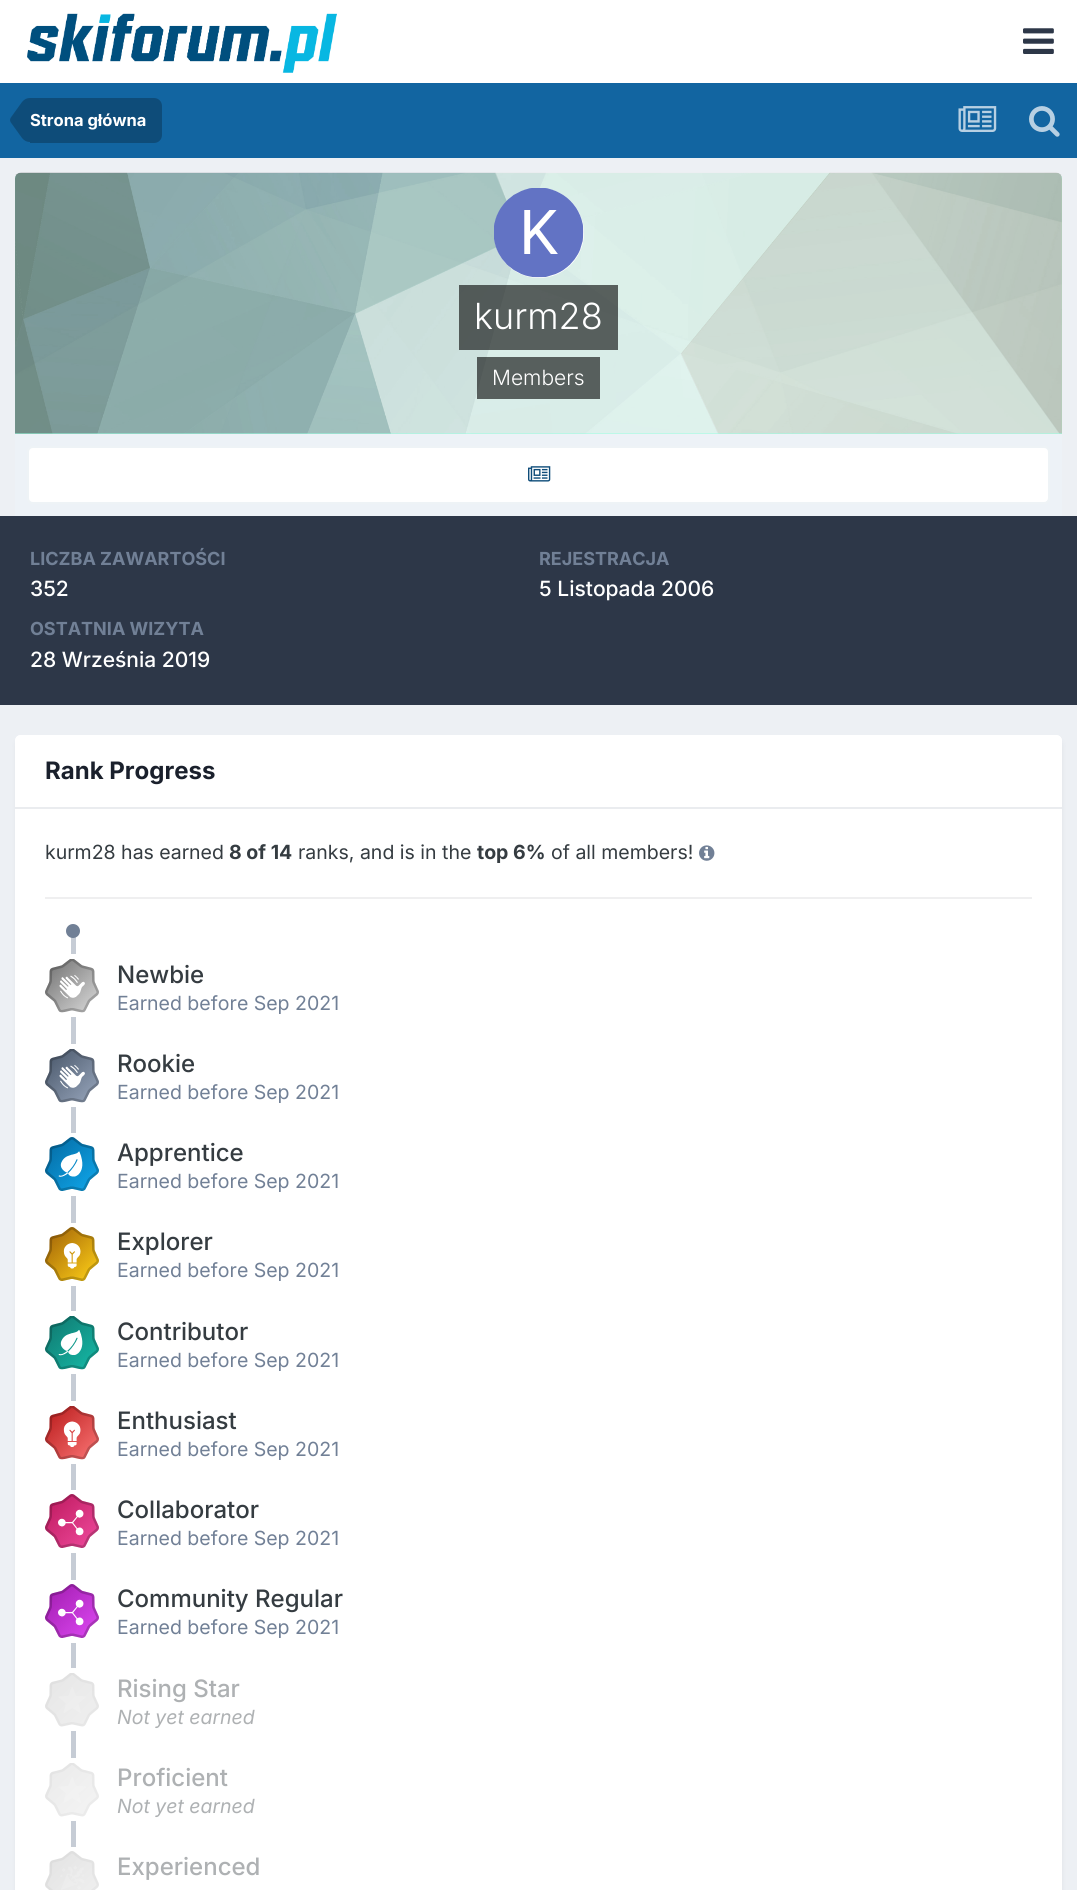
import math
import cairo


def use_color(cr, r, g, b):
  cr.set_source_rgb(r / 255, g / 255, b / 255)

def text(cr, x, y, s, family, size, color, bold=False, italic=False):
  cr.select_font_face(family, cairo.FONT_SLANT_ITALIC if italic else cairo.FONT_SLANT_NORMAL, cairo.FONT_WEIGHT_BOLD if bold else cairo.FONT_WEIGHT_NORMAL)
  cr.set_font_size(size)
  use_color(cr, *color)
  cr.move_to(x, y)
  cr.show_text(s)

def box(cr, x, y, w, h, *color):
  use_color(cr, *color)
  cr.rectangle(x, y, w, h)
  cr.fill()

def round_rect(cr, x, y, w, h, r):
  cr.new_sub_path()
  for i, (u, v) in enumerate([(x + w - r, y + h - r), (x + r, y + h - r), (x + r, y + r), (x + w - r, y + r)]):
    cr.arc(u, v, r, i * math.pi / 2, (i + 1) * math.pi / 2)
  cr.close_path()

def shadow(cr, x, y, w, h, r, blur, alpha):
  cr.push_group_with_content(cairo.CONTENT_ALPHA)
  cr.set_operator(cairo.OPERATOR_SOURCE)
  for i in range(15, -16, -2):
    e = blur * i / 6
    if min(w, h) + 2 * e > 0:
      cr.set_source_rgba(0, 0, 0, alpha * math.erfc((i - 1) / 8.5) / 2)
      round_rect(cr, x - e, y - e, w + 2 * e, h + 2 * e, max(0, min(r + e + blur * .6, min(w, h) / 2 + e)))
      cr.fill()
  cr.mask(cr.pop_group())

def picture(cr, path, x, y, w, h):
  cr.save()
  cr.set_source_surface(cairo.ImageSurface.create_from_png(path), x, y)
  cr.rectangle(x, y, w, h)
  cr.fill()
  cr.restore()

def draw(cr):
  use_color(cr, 237, 240, 244)
  cr.paint()
  box(cr, 0, 0, 1077, 83, 255, 255, 255)
  picture(cr, "img_01.png", 27, 13, 310, 60)
  picture(cr, "img_02.png", 1023, 28, 31, 26)
  box(cr, 0, 83, 1077, 75, 18, 101, 161)
  use_color(cr, 14, 76, 121)
  cr.new_path()
  cr.move_to(30, 98)
  cr.line_to(154, 98)
  cr.curve_to(158.5, 98, 162, 101.5, 162, 106)
  cr.line_to(162, 135)
  cr.curve_to(162, 139.5, 158.5, 143, 154, 143)
  cr.line_to(30, 143)
  cr.close_path()
  cr.fill()
  cr.new_path()
  cr.move_to(30, 120)
  cr.line_to(30, 142)
  cr.curve_to(27, 142, 24.5, 141, 22, 138)
  cr.line_to(10.5, 122)
  cr.line_to(10, 120)
  cr.close_path()
  cr.move_to(30, 120)
  cr.line_to(10, 120)
  cr.line_to(10.5, 118)
  cr.line_to(22, 102)
  cr.curve_to(24.5, 99, 27, 98, 30, 98)
  cr.close_path()
  cr.fill()
  picture(cr, "img_03.png", 958, 106, 39, 26)
  picture(cr, "img_04.png", 1029, 106, 31, 31)
  use_color(cr, 153, 255, 226)
  cr.new_path()
  cr.move_to(21, 173)
  cr.line_to(1056, 173)
  cr.curve_to(1059.5, 173, 1062, 175.5, 1062, 179)
  cr.line_to(1062, 434)
  cr.line_to(15, 434)
  cr.line_to(15, 179)
  cr.curve_to(15, 175.5, 17.5, 173, 21, 173)
  cr.close_path()
  cr.fill()
  picture(cr, "img_05.png", 15, 172, 1047, 262)
  use_color(cr, 255, 255, 255)
  cr.arc(539, 233, 45, 0, 2 * math.pi)
  cr.fill()
  picture(cr, "img_06.png", 494, 188, 90, 90)
  cr.set_source_rgba(0, 0, 0, 0.6)
  cr.rectangle(459, 285, 159, 65)
  cr.fill()
  cr.rectangle(477, 357, 123, 42)
  cr.fill()
  box(cr, 15, 434, 1047, 82, 237, 242, 247)
  use_color(cr, 255, 255, 255)
  round_rect(cr, 27, 446, 1023, 58, 6)
  cr.fill()
  round_rect(cr, 28, 447, 1021, 56, 5)
  cr.set_source_rgba(0.055, 0.298, 0.475, 0.07)
  cr.stroke()
  picture(cr, "img_07.png", 528, 466, 23, 16)
  box(cr, 0, 516, 1077, 189, 45, 55, 72)
  use_color(cr, 45, 55, 72)
  shadow(cr, 17, 740, 1044, 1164, 5, 3, 0.1)
  use_color(cr, 255, 255, 255)
  round_rect(cr, 15, 735, 1047, 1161, 6)
  cr.fill()
  cr.new_path()
  cr.move_to(21, 735)
  cr.line_to(1056, 735)
  cr.curve_to(1059.5, 735, 1062, 737.5, 1062, 741)
  cr.line_to(1062, 809)
  cr.line_to(15, 809)
  cr.line_to(15, 741)
  cr.curve_to(15, 737.5, 17.5, 735, 21, 735)
  cr.close_path()
  cr.fill()
  box(cr, 15, 807, 1047, 2, 234, 236, 239)
  picture(cr, "img_08.png", 699, 845, 16, 16)
  box(cr, 45, 897, 987, 2, 239, 239, 240)
  box(cr, 71, 929, 5, 918, 198, 204, 213)
  use_color(cr, 113, 128, 150)
  cr.arc(73, 931, 7, 0, 2 * math.pi)
  cr.fill()
  box(cr, 71, 954, 5, 63, 255, 255, 255)
  picture(cr, "img_09.png", 45, 959, 54, 54)
  box(cr, 71, 1044, 5, 63, 255, 255, 255)
  picture(cr, "img_10.png", 45, 1049, 54, 54)
  box(cr, 71, 1133, 5, 63, 255, 255, 255)
  picture(cr, "img_11.png", 45, 1137, 54, 54)
  box(cr, 71, 1223, 5, 63, 255, 255, 255)
  picture(cr, "img_12.png", 45, 1227, 54, 54)
  box(cr, 71, 1311, 5, 63, 255, 255, 255)
  picture(cr, "img_13.png", 45, 1316, 54, 54)
  box(cr, 71, 1401, 5, 63, 255, 255, 255)
  picture(cr, "img_14.png", 45, 1406, 54, 54)
  box(cr, 71, 1490, 5, 63, 255, 255, 255)
  picture(cr, "img_15.png", 45, 1494, 54, 54)
  box(cr, 71, 1580, 5, 63, 255, 255, 255)
  picture(cr, "img_16.png", 45, 1584, 54, 54)
  box(cr, 71, 1668, 5, 63, 255, 255, 255)
  picture(cr, "img_17.png", 45, 1673, 54, 54)
  box(cr, 71, 1758, 5, 63, 255, 255, 255)
  picture(cr, "img_18.png", 45, 1763, 54, 54)
  picture(cr, "img_19.png", 45, 1851, 54, 39)
  text(cr, 30, 126, "Strona główna", "Inter", 16.5, (255, 255, 255), bold=True)
  text(cr, 474, 329, "kurm28", "Inter Light", 36, (255, 255, 255))
  text(cr, 492, 385, "Members", "Inter Light", 21, (255, 255, 255))
  text(cr, 30, 565, "LICZBA ZAWARTOŚCI", "Inter", 18, (113, 128, 150), bold=True)
  text(cr, 30, 596, "352", "Inter Medium", 21, (255, 255, 255))
  text(cr, 539, 565, "REJESTRACJA", "Inter", 18, (113, 128, 150), bold=True)
  text(cr, 539, 596, "5 Listopada 2006", "Inter Medium", 21, (255, 255, 255))
  text(cr, 30, 635, "OSTATNIA WIZYTA", "Inter", 18, (113, 128, 150), bold=True)
  text(cr, 30, 667, "28 Września 2019", "Inter Medium", 21, (255, 255, 255))
  text(cr, 45, 779, "Rank Progress", "Inter", 24, (26, 32, 44), bold=True)
  text(cr, 45, 859, "kurm28 has earned", "Inter", 19.5, (53, 60, 65))
  text(cr, 229, 859, "8 of 14", "Inter", 19.5, (53, 60, 65), bold=True)
  text(cr, 298, 859, "ranks, and is in the", "Inter", 19.5, (53, 60, 65))
  text(cr, 477, 859, "top 6%", "Inter", 19.5, (53, 60, 65), bold=True)
  text(cr, 551, 859, "of all members!", "Inter", 19.5, (53, 60, 65))
  text(cr, 117, 983, "Newbie", "Inter Medium", 24, (53, 60, 65))
  text(cr, 117, 1010, "Earned before Sep 2021", "Inter", 19.5, (113, 128, 150))
  text(cr, 117, 1072, "Rookie", "Inter Medium", 24, (53, 60, 65))
  text(cr, 117, 1099, "Earned before Sep 2021", "Inter", 19.5, (113, 128, 150))
  text(cr, 117, 1161, "Apprentice", "Inter Medium", 24, (53, 60, 65))
  text(cr, 117, 1188, "Earned before Sep 2021", "Inter", 19.5, (113, 128, 150))
  text(cr, 117, 1250, "Explorer", "Inter Medium", 24, (53, 60, 65))
  text(cr, 117, 1277, "Earned before Sep 2021", "Inter", 19.5, (113, 128, 150))
  text(cr, 117, 1340, "Contributor", "Inter Medium", 24, (53, 60, 65))
  text(cr, 117, 1367, "Earned before Sep 2021", "Inter", 19.5, (113, 128, 150))
  text(cr, 117, 1429, "Enthusiast", "Inter Medium", 24, (53, 60, 65))
  text(cr, 117, 1456, "Earned before Sep 2021", "Inter", 19.5, (113, 128, 150))
  text(cr, 117, 1518, "Collaborator", "Inter Medium", 24, (53, 60, 65))
  text(cr, 117, 1545, "Earned before Sep 2021", "Inter", 19.5, (113, 128, 150))
  text(cr, 117, 1607, "Community Regular", "Inter Medium", 24, (53, 60, 65))
  text(cr, 117, 1634, "Earned before Sep 2021", "Inter", 19.5, (113, 128, 150))
  text(cr, 117, 1697, "Rising Star", "Inter Medium", 24, (174, 177, 179))
  text(cr, 117, 1724, "Not yet earned", "Inter", 19.5, (174, 177, 179), italic=True)
  text(cr, 117, 1786, "Proficient", "Inter Medium", 24, (174, 177, 179))
  text(cr, 117, 1813, "Not yet earned", "Inter", 19.5, (174, 177, 179), italic=True)
  text(cr, 117, 1875, "Experienced", "Inter Medium", 24, (174, 177, 179))


surface = cairo.ImageSurface(cairo.FORMAT_RGB24, 1077, 1890)
cr = cairo.Context(surface)
options = cairo.FontOptions()
options.set_hint_metrics(cairo.HINT_METRICS_OFF)
options.set_hint_style(cairo.HINT_STYLE_NONE)
cr.set_font_options(options)
cr.set_miter_limit(4)
draw(cr)
surface.write_to_png("out.png")
